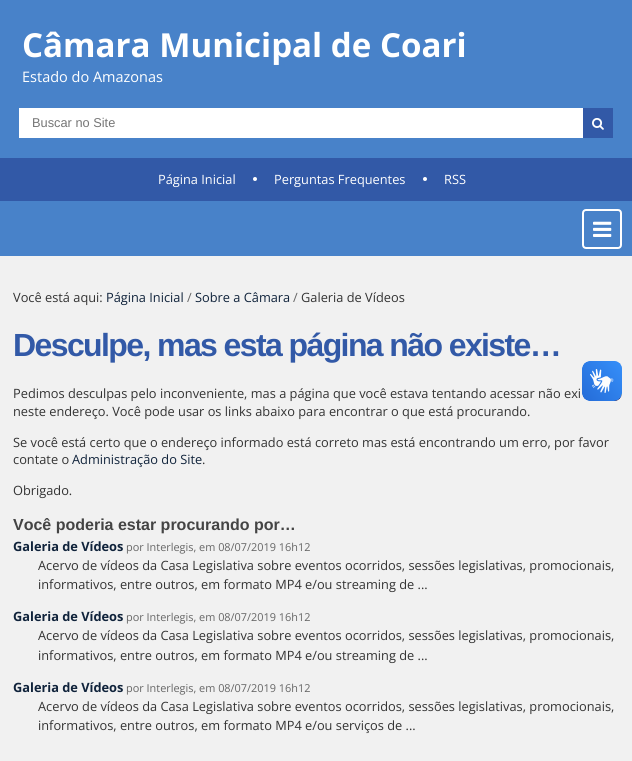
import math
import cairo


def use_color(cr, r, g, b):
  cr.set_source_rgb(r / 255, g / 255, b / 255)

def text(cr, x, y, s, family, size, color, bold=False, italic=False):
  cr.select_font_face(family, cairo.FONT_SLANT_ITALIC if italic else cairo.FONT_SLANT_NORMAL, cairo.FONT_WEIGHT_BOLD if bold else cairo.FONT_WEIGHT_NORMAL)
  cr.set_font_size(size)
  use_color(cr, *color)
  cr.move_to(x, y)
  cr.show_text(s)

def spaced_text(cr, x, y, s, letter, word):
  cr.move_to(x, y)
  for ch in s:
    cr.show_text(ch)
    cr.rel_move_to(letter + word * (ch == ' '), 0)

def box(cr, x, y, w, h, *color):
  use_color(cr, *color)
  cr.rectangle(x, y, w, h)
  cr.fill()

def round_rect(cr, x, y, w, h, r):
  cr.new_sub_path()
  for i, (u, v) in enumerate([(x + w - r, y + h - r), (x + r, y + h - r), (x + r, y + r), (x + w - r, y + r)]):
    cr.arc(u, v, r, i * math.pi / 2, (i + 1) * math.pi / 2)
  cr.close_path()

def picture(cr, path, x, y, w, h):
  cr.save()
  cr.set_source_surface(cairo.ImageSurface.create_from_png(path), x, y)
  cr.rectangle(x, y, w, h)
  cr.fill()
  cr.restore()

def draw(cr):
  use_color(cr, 241, 241, 241)
  cr.paint()
  box(cr, 0, 0, 632, 256, 72, 130, 201)
  box(cr, 19, 108, 564, 30, 255, 255, 255)
  box(cr, 583, 108, 30, 30, 50, 89, 167)
  picture(cr, "img_01.png", 592, 118, 12, 12)
  box(cr, 0, 158, 632, 43, 50, 89, 167)
  use_color(cr, 255, 255, 255)
  cr.arc(255, 179, 2, 0, 2 * math.pi)
  cr.fill()
  cr.arc(425, 179, 2, 0, 2 * math.pi)
  cr.fill()
  round_rect(cr, 583, 210, 38, 38, 3)
  cr.stroke()
  picture(cr, "img_02.png", 593, 221, 19, 16)
  picture(cr, "img_03.png", 582, 361, 40, 40)
  picture(cr, "img_04.png", 582, 361, 40, 40)
  text(cr, 22, 57, "Câmara Municipal de Coari", "Open Sans", 33.1, (255, 255, 255), bold=True)
  text(cr, 22, 82, "Estado do Amazonas", "Open Sans", 14.5, (255, 255, 255))
  text(cr, 32, 127, "Buscar no Site", "Liberation Sans", 12.8, (117, 117, 117))
  text(cr, 158, 184, "Página Inicial", "Open Sans", 12.8, (255, 255, 255))
  text(cr, 274, 184, "Perguntas Frequentes", "Open Sans", 12.8, (255, 255, 255))
  text(cr, 444, 184, "RSS", "Open Sans", 12.8, (255, 255, 255))
  text(cr, 13, 302, "Você está aqui:", "Open Sans", 12.8, (51, 51, 51))
  text(cr, 106, 302, "Página Inicial", "Open Sans", 12.8, (16, 35, 59))
  text(cr, 187, 302, "/", "Open Sans", 12.8, (102, 102, 102))
  text(cr, 195, 302, "Sobre a Câmara", "Open Sans", 12.8, (16, 35, 59))
  text(cr, 293, 302, "/", "Open Sans", 12.8, (102, 102, 102))
  text(cr, 301, 302, "Galeria de Vídeos", "Open Sans", 12.8, (51, 51, 51))
  cr.select_font_face("Liberation Sans", cairo.FONT_SLANT_NORMAL, cairo.FONT_WEIGHT_BOLD)
  cr.set_font_size(32)
  use_color(cr, 50, 89, 167)
  spaced_text(cr, 13, 356, "Desculpe, mas esta página não existe…", -1.6, 0)
  text(cr, 13, 398, "Pedimos desculpas pelo inconveniente, mas a página que você estava tentando acessar não exi", "Open Sans", 12.8, (51, 51, 51))
  text(cr, 13, 416, "neste endereço. Você pode usar os links abaixo para encontrar o que está procurando.", "Open Sans", 12.8, (51, 51, 51))
  text(cr, 13, 447, "Se você está certo que o endereço informado está correto mas está encontrando um erro, por favor", "Open Sans", 12.8, (51, 51, 51))
  text(cr, 13, 464, "contate o", "Open Sans", 12.8, (51, 51, 51))
  text(cr, 72, 464, "Administração do Site", "Open Sans", 12.8, (16, 35, 59))
  text(cr, 202, 464, ".", "Open Sans", 12.8, (51, 51, 51))
  text(cr, 13, 495, "Obrigado.", "Open Sans", 12.8, (51, 51, 51))
  text(cr, 13, 530, "Você poderia estar procurando por…", "Liberation Sans", 16, (68, 68, 68), bold=True)
  text(cr, 13, 551, "Galeria de Vídeos", "Open Sans", 12.8, (16, 35, 59), bold=True)
  text(cr, 126, 551, "por Interlegis, em 08/07/2019 16h12", "Open Sans", 10.9, (102, 102, 102))
  text(cr, 38, 570, "Acervo de vídeos da Casa Legislativa sobre eventos ocorridos, sessões legislativas, promocionais,", "Open Sans", 12.8, (51, 51, 51))
  text(cr, 38, 589, "informativos, entre outros, em formato MP4 e/ou streaming de ...", "Open Sans", 12.8, (51, 51, 51))
  text(cr, 13, 621, "Galeria de Vídeos", "Open Sans", 12.8, (16, 35, 59), bold=True)
  text(cr, 126, 621, "por Interlegis, em 08/07/2019 16h12", "Open Sans", 10.9, (102, 102, 102))
  text(cr, 38, 640, "Acervo de vídeos da Casa Legislativa sobre eventos ocorridos, sessões legislativas, promocionais,", "Open Sans", 12.8, (51, 51, 51))
  text(cr, 38, 660, "informativos, entre outros, em formato MP4 e/ou streaming de ...", "Open Sans", 12.8, (51, 51, 51))
  text(cr, 13, 692, "Galeria de Vídeos", "Open Sans", 12.8, (16, 35, 59), bold=True)
  text(cr, 126, 692, "por Interlegis, em 08/07/2019 16h12", "Open Sans", 10.9, (102, 102, 102))
  text(cr, 38, 711, "Acervo de vídeos da Casa Legislativa sobre eventos ocorridos, sessões legislativas, promocionais,", "Open Sans", 12.8, (51, 51, 51))
  text(cr, 38, 730, "informativos, entre outros, em formato MP4 e/ou serviços de ...", "Open Sans", 12.8, (51, 51, 51))


surface = cairo.ImageSurface(cairo.FORMAT_RGB24, 632, 761)
cr = cairo.Context(surface)
options = cairo.FontOptions()
options.set_hint_metrics(cairo.HINT_METRICS_OFF)
options.set_hint_style(cairo.HINT_STYLE_NONE)
cr.set_font_options(options)
cr.set_miter_limit(4)
draw(cr)
surface.write_to_png("out.png")
